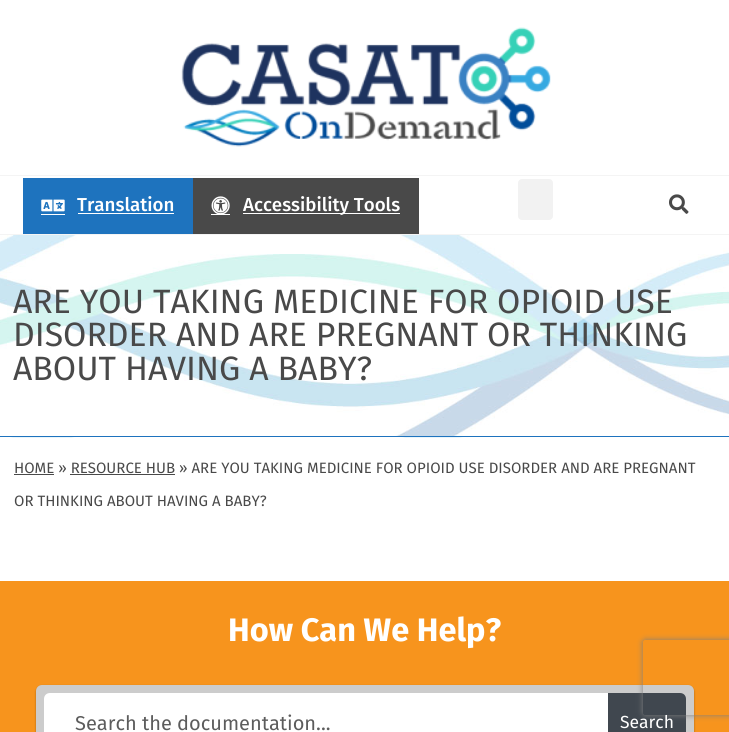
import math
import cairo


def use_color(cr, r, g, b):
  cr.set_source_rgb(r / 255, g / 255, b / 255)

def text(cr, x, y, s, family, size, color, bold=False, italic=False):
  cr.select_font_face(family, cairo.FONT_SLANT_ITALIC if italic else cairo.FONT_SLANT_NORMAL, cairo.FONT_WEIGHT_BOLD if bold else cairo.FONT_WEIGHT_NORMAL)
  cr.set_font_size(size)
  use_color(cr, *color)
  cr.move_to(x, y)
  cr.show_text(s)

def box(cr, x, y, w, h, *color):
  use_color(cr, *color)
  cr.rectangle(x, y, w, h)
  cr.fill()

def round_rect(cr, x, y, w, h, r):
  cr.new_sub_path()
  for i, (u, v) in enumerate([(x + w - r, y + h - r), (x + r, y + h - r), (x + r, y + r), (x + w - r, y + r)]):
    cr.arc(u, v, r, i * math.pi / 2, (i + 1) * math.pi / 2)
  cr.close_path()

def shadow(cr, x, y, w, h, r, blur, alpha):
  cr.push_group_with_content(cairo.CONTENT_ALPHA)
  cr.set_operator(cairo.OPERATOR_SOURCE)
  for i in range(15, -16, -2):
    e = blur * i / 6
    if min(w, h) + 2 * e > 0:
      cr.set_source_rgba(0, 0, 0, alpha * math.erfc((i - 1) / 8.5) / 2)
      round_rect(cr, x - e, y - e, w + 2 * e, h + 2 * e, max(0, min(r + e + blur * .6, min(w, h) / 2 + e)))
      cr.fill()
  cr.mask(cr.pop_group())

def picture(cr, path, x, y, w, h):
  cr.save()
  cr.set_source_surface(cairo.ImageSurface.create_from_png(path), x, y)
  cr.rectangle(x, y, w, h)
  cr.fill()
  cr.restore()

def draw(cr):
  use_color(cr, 255, 255, 255)
  cr.paint()
  box(cr, 0, 175, 729, 1, 244, 244, 244)
  picture(cr, "img_01.png", 181, 27, 370, 120)
  box(cr, 0, 234, 729, 1, 244, 244, 244)
  box(cr, 23, 178, 170, 56, 30, 115, 190)
  picture(cr, "img_02.png", 41, 199, 24, 13)
  box(cr, 41, 214, 24, 1, 255, 255, 255)
  box(cr, 78, 213, 96, 1, 255, 255, 255)
  box(cr, 193, 178, 226, 56, 73, 73, 73)
  picture(cr, "img_03.png", 211, 196, 19, 18)
  box(cr, 211, 214, 19, 1, 255, 255, 255)
  box(cr, 243, 213, 157, 1, 255, 255, 255)
  use_color(cr, 242, 242, 242)
  round_rect(cr, 518, 179, 35, 41, 4)
  cr.fill()
  picture(cr, "img_04.png", 669, 194, 20, 20)
  picture(cr, "img_05.png", 0, 235, 729, 203)
  box(cr, 0, 436, 729, 1, 30, 115, 190)
  box(cr, 14, 474, 40, 1, 73, 73, 73)
  box(cr, 70, 474, 105, 1, 73, 73, 73)
  box(cr, 0, 581, 729, 151, 247, 148, 29)
  use_color(cr, 0, 0, 0)
  shadow(cr, 36, 686, 658, 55, 6, 1, 0.32)
  use_color(cr, 204, 204, 204)
  round_rect(cr, 36, 685, 658, 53, 6)
  cr.fill()
  use_color(cr, 255, 255, 255)
  cr.new_path()
  cr.move_to(50, 693)
  cr.line_to(608, 693)
  cr.line_to(608, 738)
  cr.line_to(50, 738)
  cr.curve_to(46.5, 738, 44, 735.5, 44, 732)
  cr.line_to(44, 699)
  cr.curve_to(44, 695.5, 46.5, 693, 50, 693)
  cr.close_path()
  cr.fill()
  use_color(cr, 64, 71, 79)
  cr.new_path()
  cr.move_to(608, 693)
  cr.line_to(680, 693)
  cr.curve_to(683.5, 693, 686, 695.5, 686, 699)
  cr.line_to(686, 732)
  cr.curve_to(686, 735.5, 683.5, 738, 680, 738)
  cr.line_to(608, 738)
  cr.close_path()
  cr.fill()
  cr.save()
  cr.set_fill_rule(cairo.FILL_RULE_EVEN_ODD)
  cr.new_path()
  cr.move_to(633, 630)
  cr.line_to(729, 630)
  cr.line_to(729, 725)
  cr.line_to(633, 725)
  cr.close_path()
  cr.move_to(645.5, 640)
  cr.line_to(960.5, 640)
  cr.curve_to(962, 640, 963, 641, 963, 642.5)
  cr.line_to(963, 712.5)
  cr.curve_to(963, 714, 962, 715, 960.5, 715)
  cr.line_to(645.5, 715)
  cr.curve_to(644, 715, 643, 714, 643, 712.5)
  cr.line_to(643, 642.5)
  cr.curve_to(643, 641, 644, 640, 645.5, 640)
  cr.close_path()
  cr.clip()
  use_color(cr, 128, 128, 128)
  shadow(cr, 643, 640, 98, 75, 2.5, 3, 1)
  cr.restore()
  text(cr, 77, 211, "Translation", "Fira Sans Medium", 18.75, (255, 255, 255))
  text(cr, 243, 211, "Accessibility Tools", "Fira Sans Medium", 18.75, (255, 255, 255))
  text(cr, 13, 313, "ARE YOU TAKING MEDICINE FOR OPIOID USE", "Fira Sans", 33.75, (73, 73, 73))
  text(cr, 13, 346, "DISORDER AND ARE PREGNANT OR THINKING", "Fira Sans", 33.75, (73, 73, 73))
  text(cr, 13, 380, "ABOUT HAVING A BABY?", "Fira Sans", 33.75, (73, 73, 73))
  text(cr, 14, 473, "HOME » RESOURCE HUB » ARE YOU TAKING MEDICINE FOR OPIOID USE DISORDER AND ARE PREGNANT", "Fira Sans", 15, (73, 73, 73))
  text(cr, 14, 506, "OR THINKING ABOUT HAVING A BABY?", "Fira Sans", 15, (73, 73, 73))
  text(cr, 228, 641, "How Can We Help?", "Fira Sans", 32.5, (255, 255, 255), bold=True)
  text(cr, 75, 730, "Search the documentation...", "Fira Sans", 20, (92, 92, 92))
  text(cr, 620, 728, "Search", "Fira Sans", 17.5, (255, 255, 255))


surface = cairo.ImageSurface(cairo.FORMAT_RGB24, 729, 732)
cr = cairo.Context(surface)
options = cairo.FontOptions()
options.set_hint_metrics(cairo.HINT_METRICS_OFF)
options.set_hint_style(cairo.HINT_STYLE_NONE)
cr.set_font_options(options)
cr.set_miter_limit(4)
draw(cr)
surface.write_to_png("out.png")
